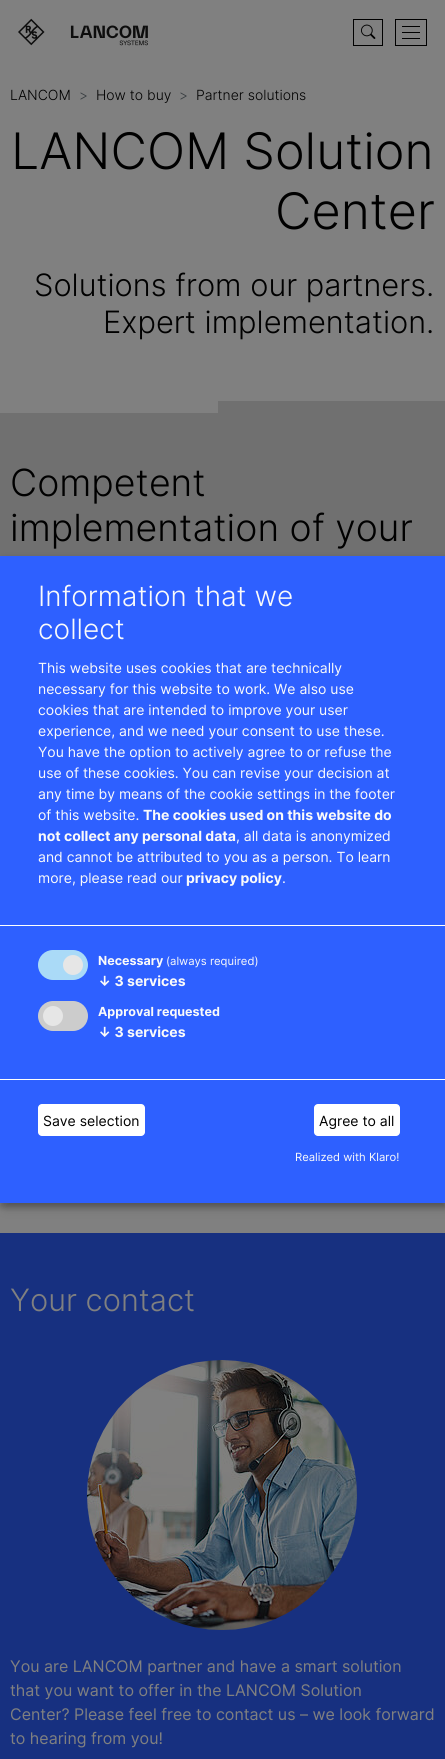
import math
import cairo


def use_color(cr, r, g, b):
  cr.set_source_rgb(r / 255, g / 255, b / 255)

def text(cr, x, y, s, family, size, color, bold=False, italic=False):
  cr.select_font_face(family, cairo.FONT_SLANT_ITALIC if italic else cairo.FONT_SLANT_NORMAL, cairo.FONT_WEIGHT_BOLD if bold else cairo.FONT_WEIGHT_NORMAL)
  cr.set_font_size(size)
  use_color(cr, *color)
  cr.move_to(x, y)
  cr.show_text(s)

def box(cr, x, y, w, h, *color):
  use_color(cr, *color)
  cr.rectangle(x, y, w, h)
  cr.fill()

def round_rect(cr, x, y, w, h, r):
  cr.new_sub_path()
  for i, (u, v) in enumerate([(x + w - r, y + h - r), (x + r, y + h - r), (x + r, y + r), (x + w - r, y + r)]):
    cr.arc(u, v, r, i * math.pi / 2, (i + 1) * math.pi / 2)
  cr.close_path()

def shadow(cr, x, y, w, h, r, blur, alpha):
  cr.push_group_with_content(cairo.CONTENT_ALPHA)
  cr.set_operator(cairo.OPERATOR_SOURCE)
  for i in range(15, -16, -2):
    e = blur * i / 6
    if min(w, h) + 2 * e > 0:
      cr.set_source_rgba(0, 0, 0, alpha * math.erfc((i - 1) / 8.5) / 2)
      round_rect(cr, x - e, y - e, w + 2 * e, h + 2 * e, max(0, min(r + e + blur * .6, min(w, h) / 2 + e)))
      cr.fill()
  cr.mask(cr.pop_group())

def picture(cr, path, x, y, w, h):
  cr.save()
  cr.set_source_surface(cairo.ImageSurface.create_from_png(path), x, y)
  cr.rectangle(x, y, w, h)
  cr.fill()
  cr.restore()

def draw(cr):
  use_color(cr, 128, 128, 128)
  cr.paint()
  picture(cr, "img_01.png", 18, 18, 130, 28)
  cr.rectangle(353.5, 19.5, 29, 26)
  use_color(cr, 0, 0, 0)
  cr.set_line_width(1)
  cr.stroke()
  picture(cr, "img_02.png", 361, 24, 15, 15)
  cr.rectangle(395.5, 19.5, 31, 26)
  cr.stroke()
  box(cr, 402, 26, 18, 1, 0, 0, 0)
  box(cr, 402, 32, 18, 1, 0, 0, 0)
  box(cr, 402, 38, 18, 1, 0, 0, 0)
  box(cr, 218, 401, 227, 12, 112, 112, 112)
  box(cr, 0, 413, 445, 143, 112, 112, 112)
  box(cr, 0, 1233, 445, 526, 23, 48, 128)
  picture(cr, "img_03.png", 87, 1360, 270, 270)
  use_color(cr, 0, 0, 0)
  shadow(cr, 5, 561, 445, 647, 0, 5, 0.19)
  shadow(cr, 0, 560, 445, 647, 0, 3, 0.2)
  box(cr, 0, 556, 445, 647, 46, 96, 255)
  box(cr, 0, 925, 445, 1, 255, 255, 255)
  use_color(cr, 170, 218, 247)
  round_rect(cr, 38, 950, 50, 30, 15)
  cr.fill()
  use_color(cr, 230, 230, 230)
  cr.arc(73, 965, 10, 0, 2 * math.pi)
  cr.fill()
  use_color(cr, 204, 204, 204)
  round_rect(cr, 38, 1001, 50, 30, 15)
  cr.fill()
  use_color(cr, 230, 230, 230)
  cr.arc(53, 1016, 10, 0, 2 * math.pi)
  cr.fill()
  box(cr, 0, 1079, 445, 1, 255, 255, 255)
  round_rect(cr, 38, 1104, 107, 32, 4)
  cr.fill()
  round_rect(cr, 314, 1104, 86, 32, 4)
  cr.fill()
  text(cr, 10, 100, "LANCOM", "Inter Light", 14, (0, 0, 0))
  text(cr, 79, 100, ">", "Inter Light", 14, (54, 59, 63))
  text(cr, 96, 100, "How to buy", "Inter Light", 14, (0, 0, 0))
  text(cr, 179, 100, ">", "Inter Light", 14, (54, 59, 63))
  text(cr, 196, 100, "Partner solutions", "Inter Light", 14, (0, 0, 0))
  text(cr, 11, 169, "LANCOM Solution", "Inter Light", 50.25, (0, 0, 0))
  text(cr, 275, 229, "Center", "Inter Light", 50.25, (0, 0, 0))
  text(cr, 34, 296, "Solutions from our partners.", "Inter Light", 30.8, (0, 0, 0))
  text(cr, 103, 333, "Expert implementation.", "Inter Light", 30.8, (0, 0, 0))
  text(cr, 10, 496, "Competent", "Inter Light", 37.4, (0, 0, 0))
  text(cr, 10, 541, "implementation of your", "Inter Light", 37.4, (0, 0, 0))
  text(cr, 10, 1311, "Your contact", "Inter Light", 30.8, (128, 128, 128))
  text(cr, 10, 1672, "You are LANCOM partner and have a smart solution", "Inter", 16, (128, 128, 128))
  text(cr, 10, 1696, "that you want to offer in the LANCOM Solution", "Inter", 16, (128, 128, 128))
  text(cr, 10, 1720, "Center? Please feel free to contact us – we look forward", "Inter", 16, (128, 128, 128))
  text(cr, 10, 1744, "to hearing from you!", "Inter", 16, (128, 128, 128))
  text(cr, 38, 606, "Information that we", "Inter Light", 28, (250, 250, 250))
  text(cr, 38, 639, "collect", "Inter Light", 28, (250, 250, 250))
  text(cr, 38, 673, "This website uses cookies that are technically", "Inter", 14, (250, 250, 250))
  text(cr, 38, 694, "necessary for this website to work. We also use", "Inter", 14, (250, 250, 250))
  text(cr, 38, 715, "cookies that are intended to improve your user", "Inter", 14, (250, 250, 250))
  text(cr, 38, 736, "experience, and we need your consent to use these.", "Inter", 14, (250, 250, 250))
  text(cr, 38, 757, "You have the option to actively agree to or refuse the", "Inter", 14, (250, 250, 250))
  text(cr, 38, 778, "use of these cookies. You can revise your decision at", "Inter", 14, (250, 250, 250))
  text(cr, 38, 799, "any time by means of the cookie settings in the footer", "Inter", 14, (250, 250, 250))
  text(cr, 38, 820, "of this website.", "Inter", 14, (250, 250, 250))
  text(cr, 143, 820, "The cookies used on this website do", "Inter", 14, (250, 250, 250), bold=True)
  text(cr, 38, 841, "not collect any personal data", "Inter", 14, (250, 250, 250), bold=True)
  text(cr, 236, 841, ", all data is anonymized", "Inter", 14, (250, 250, 250))
  text(cr, 38, 862, "and cannot be attributed to you as a person. To learn", "Inter", 14, (250, 250, 250))
  text(cr, 38, 883, "more, please read our", "Inter", 14, (250, 250, 250))
  text(cr, 186, 883, "privacy policy", "Inter", 14, (250, 250, 250), bold=True)
  text(cr, 282, 883, ".", "Inter", 14, (250, 250, 250))
  text(cr, 98, 965, "Necessary", "Inter", 12.5, (250, 250, 250), bold=True)
  text(cr, 166, 965, "(always required)", "Inter", 11.25, (250, 250, 250))
  text(cr, 98, 986, "↓ 3 services", "Inter", 14, (250, 250, 250), bold=True)
  text(cr, 98, 1016, "Approval requested", "Inter", 12.5, (250, 250, 250), bold=True)
  text(cr, 98, 1037, "↓ 3 services", "Inter", 14, (250, 250, 250), bold=True)
  text(cr, 43, 1126, "Save selection", "Inter", 14, (0, 0, 0))
  text(cr, 319, 1126, "Agree to all", "Inter", 14, (0, 0, 0))
  text(cr, 295, 1161, "Realized with Klaro!", "Inter", 11.25, (250, 250, 250))


surface = cairo.ImageSurface(cairo.FORMAT_RGB24, 445, 1759)
cr = cairo.Context(surface)
options = cairo.FontOptions()
options.set_hint_metrics(cairo.HINT_METRICS_OFF)
options.set_hint_style(cairo.HINT_STYLE_NONE)
cr.set_font_options(options)
cr.set_miter_limit(4)
draw(cr)
surface.write_to_png("out.png")
